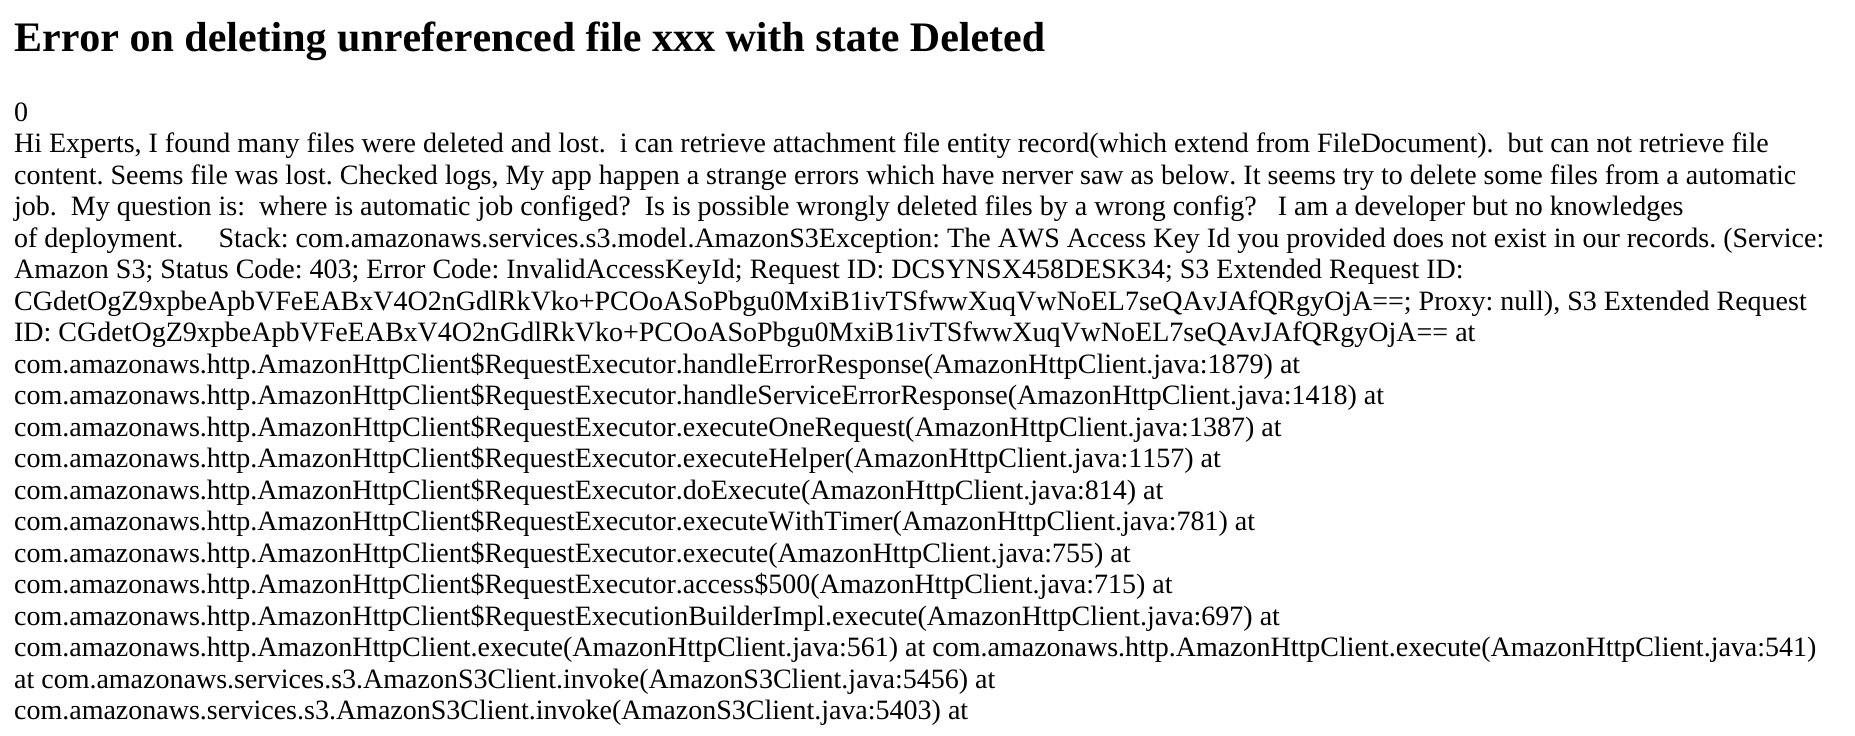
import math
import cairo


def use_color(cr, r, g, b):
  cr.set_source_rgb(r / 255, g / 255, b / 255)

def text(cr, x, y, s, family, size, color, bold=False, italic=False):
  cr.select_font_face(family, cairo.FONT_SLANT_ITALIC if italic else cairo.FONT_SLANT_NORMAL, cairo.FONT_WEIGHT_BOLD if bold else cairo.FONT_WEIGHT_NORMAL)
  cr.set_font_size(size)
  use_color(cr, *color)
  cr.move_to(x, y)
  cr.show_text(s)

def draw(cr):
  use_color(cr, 255, 255, 255)
  cr.paint()
  text(cr, 14, 51, "Error on deleting unreferenced file xxx with state Deleted", "Liberation Serif", 42, (0, 0, 0), bold=True)
  text(cr, 14, 121, "0", "Liberation Serif", 28, (0, 0, 0))
  text(cr, 14, 152, "Hi Experts, I found many files were deleted and lost.  i can retrieve attachment file entity record(which extend from FileDocument).  but can not retrieve file", "Liberation Serif", 28, (0, 0, 0))
  text(cr, 14, 184, "content. Seems file was lost. Checked logs, My app happen a strange errors which have nerver saw as below. It seems try to delete some files from a automatic", "Liberation Serif", 28, (0, 0, 0))
  text(cr, 14, 215, "job.  My question is:  where is automatic job configed?  Is is possible wrongly deleted files by a wrong config?   I am a developer but no knowledges", "Liberation Serif", 28, (0, 0, 0))
  text(cr, 14, 247, "of deployment.     Stack: com.amazonaws.services.s3.model.AmazonS3Exception: The AWS Access Key Id you provided does not exist in our records. (Service:", "Liberation Serif", 28, (0, 0, 0))
  text(cr, 14, 278, "Amazon S3; Status Code: 403; Error Code: InvalidAccessKeyId; Request ID: DCSYNSX458DESK34; S3 Extended Request ID:", "Liberation Serif", 28, (0, 0, 0))
  text(cr, 14, 310, "CGdetOgZ9xpbeApbVFeEABxV4O2nGdlRkVko+PCOoASoPbgu0MxiB1ivTSfwwXuqVwNoEL7seQAvJAfQRgyOjA==; Proxy: null), S3 Extended Request", "Liberation Serif", 28, (0, 0, 0))
  text(cr, 14, 341, "ID: CGdetOgZ9xpbeApbVFeEABxV4O2nGdlRkVko+PCOoASoPbgu0MxiB1ivTSfwwXuqVwNoEL7seQAvJAfQRgyOjA== at", "Liberation Serif", 28, (0, 0, 0))
  text(cr, 14, 373, "com.amazonaws.http.AmazonHttpClient$RequestExecutor.handleErrorResponse(AmazonHttpClient.java:1879) at", "Liberation Serif", 28, (0, 0, 0))
  text(cr, 14, 404, "com.amazonaws.http.AmazonHttpClient$RequestExecutor.handleServiceErrorResponse(AmazonHttpClient.java:1418) at", "Liberation Serif", 28, (0, 0, 0))
  text(cr, 14, 436, "com.amazonaws.http.AmazonHttpClient$RequestExecutor.executeOneRequest(AmazonHttpClient.java:1387) at", "Liberation Serif", 28, (0, 0, 0))
  text(cr, 14, 467, "com.amazonaws.http.AmazonHttpClient$RequestExecutor.executeHelper(AmazonHttpClient.java:1157) at", "Liberation Serif", 28, (0, 0, 0))
  text(cr, 14, 499, "com.amazonaws.http.AmazonHttpClient$RequestExecutor.doExecute(AmazonHttpClient.java:814) at", "Liberation Serif", 28, (0, 0, 0))
  text(cr, 14, 530, "com.amazonaws.http.AmazonHttpClient$RequestExecutor.executeWithTimer(AmazonHttpClient.java:781) at", "Liberation Serif", 28, (0, 0, 0))
  text(cr, 14, 562, "com.amazonaws.http.AmazonHttpClient$RequestExecutor.execute(AmazonHttpClient.java:755) at", "Liberation Serif", 28, (0, 0, 0))
  text(cr, 14, 593, "com.amazonaws.http.AmazonHttpClient$RequestExecutor.access$500(AmazonHttpClient.java:715) at", "Liberation Serif", 28, (0, 0, 0))
  text(cr, 14, 625, "com.amazonaws.http.AmazonHttpClient$RequestExecutionBuilderImpl.execute(AmazonHttpClient.java:697) at", "Liberation Serif", 28, (0, 0, 0))
  text(cr, 14, 656, "com.amazonaws.http.AmazonHttpClient.execute(AmazonHttpClient.java:561) at com.amazonaws.http.AmazonHttpClient.execute(AmazonHttpClient.java:541)", "Liberation Serif", 28, (0, 0, 0))
  text(cr, 14, 688, "at com.amazonaws.services.s3.AmazonS3Client.invoke(AmazonS3Client.java:5456) at", "Liberation Serif", 28, (0, 0, 0))
  text(cr, 14, 719, "com.amazonaws.services.s3.AmazonS3Client.invoke(AmazonS3Client.java:5403) at", "Liberation Serif", 28, (0, 0, 0))


surface = cairo.ImageSurface(cairo.FORMAT_RGB24, 1855, 736)
cr = cairo.Context(surface)
options = cairo.FontOptions()
options.set_hint_metrics(cairo.HINT_METRICS_OFF)
options.set_hint_style(cairo.HINT_STYLE_NONE)
cr.set_font_options(options)
cr.set_miter_limit(4)
draw(cr)
surface.write_to_png("out.png")
